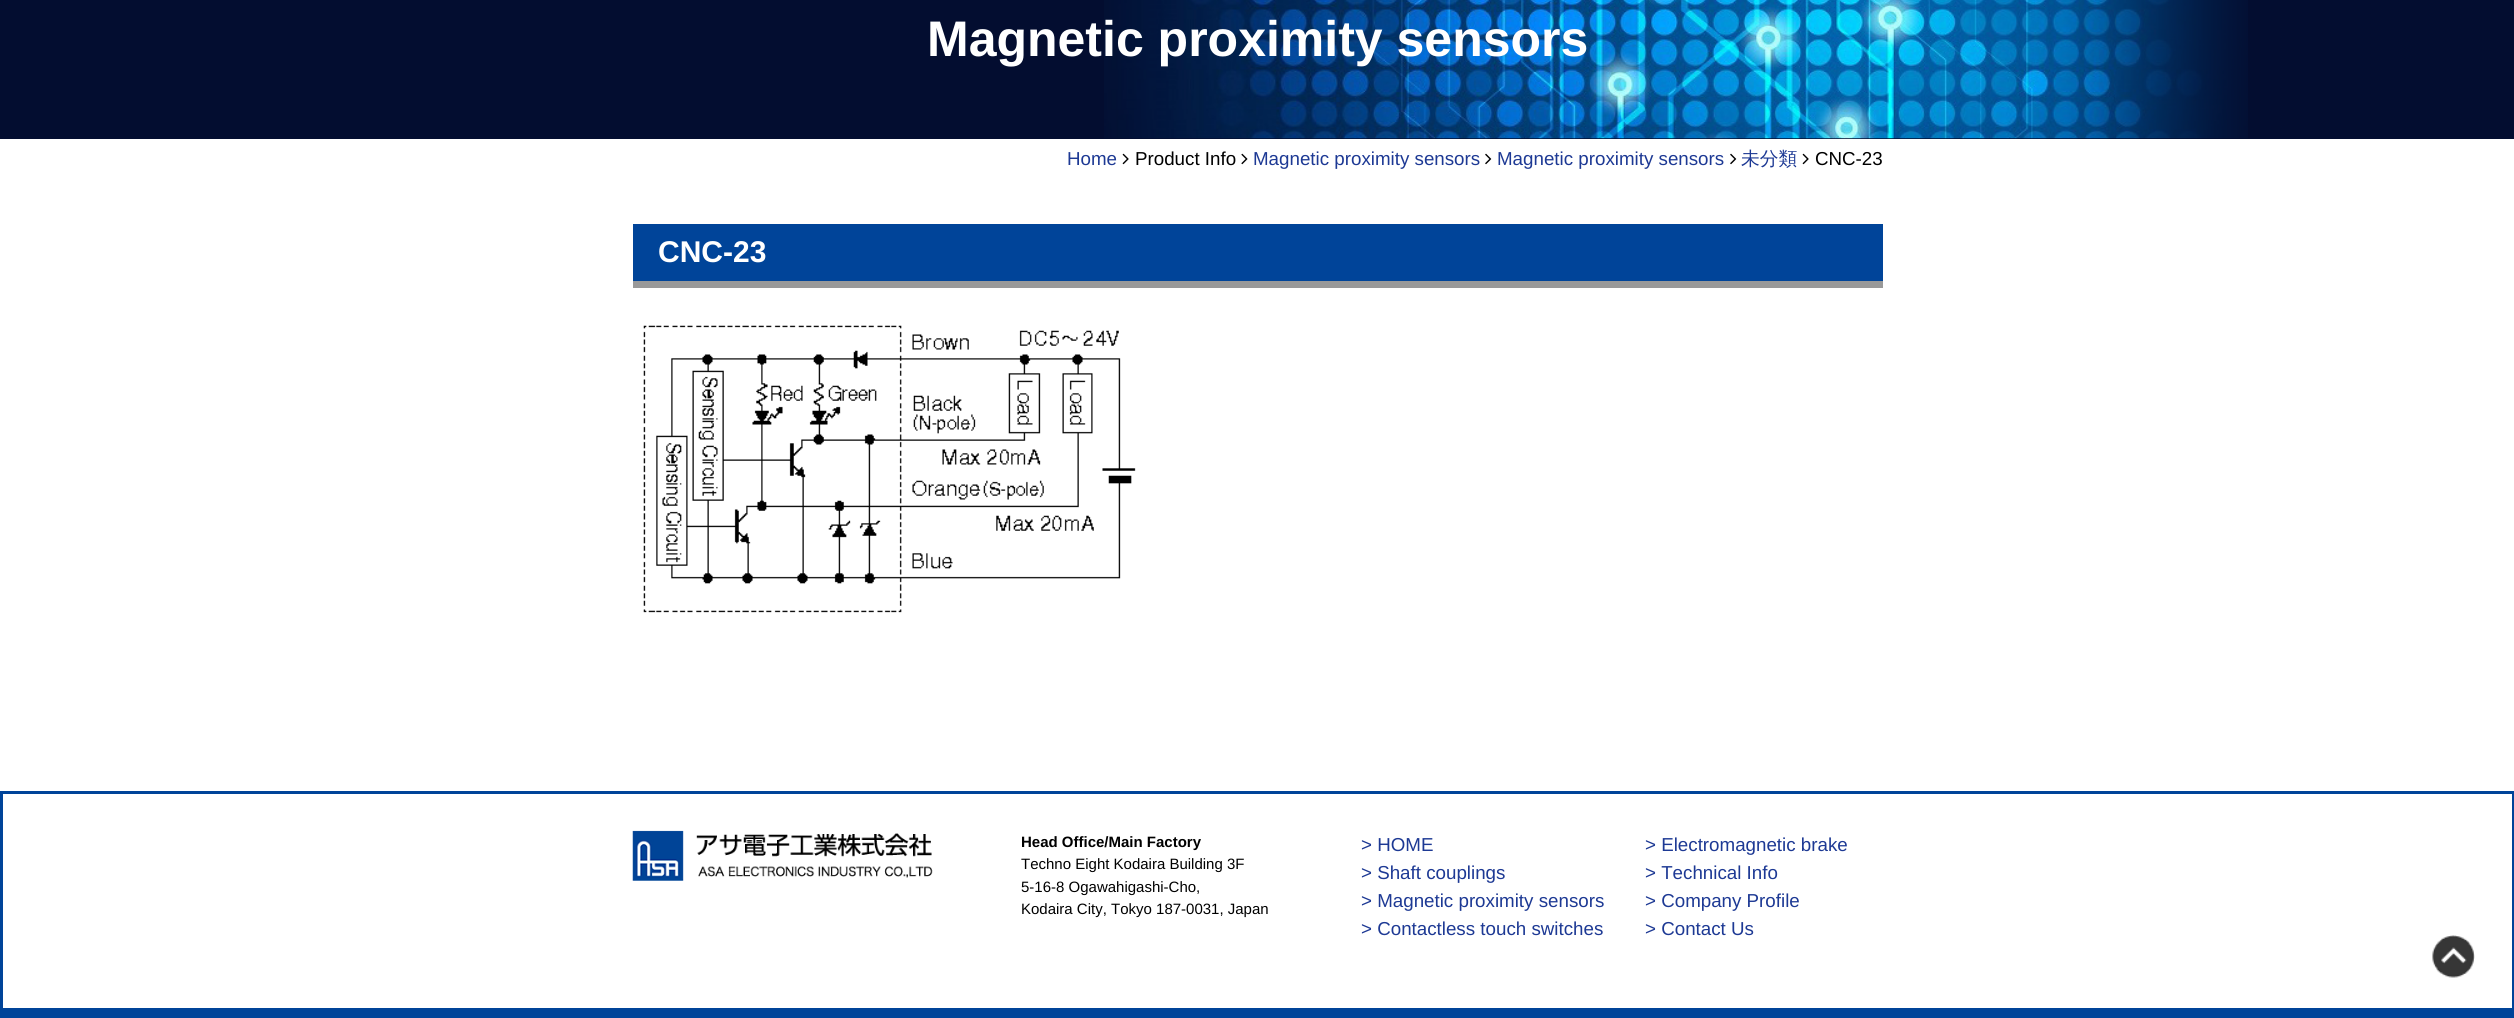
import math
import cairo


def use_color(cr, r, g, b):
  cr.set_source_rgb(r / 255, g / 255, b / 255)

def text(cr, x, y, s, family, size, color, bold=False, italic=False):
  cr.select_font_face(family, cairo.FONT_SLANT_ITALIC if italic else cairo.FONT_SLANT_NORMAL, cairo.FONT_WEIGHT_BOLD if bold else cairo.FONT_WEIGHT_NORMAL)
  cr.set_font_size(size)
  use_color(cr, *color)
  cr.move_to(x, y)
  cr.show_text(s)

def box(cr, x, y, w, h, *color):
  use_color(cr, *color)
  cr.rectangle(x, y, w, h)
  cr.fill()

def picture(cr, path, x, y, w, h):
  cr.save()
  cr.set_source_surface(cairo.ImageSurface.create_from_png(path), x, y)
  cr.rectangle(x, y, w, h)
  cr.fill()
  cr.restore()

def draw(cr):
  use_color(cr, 255, 255, 255)
  cr.paint()
  box(cr, 0, 0, 2514, 139, 3, 13, 48)
  picture(cr, "img_01.png", 1104, 0, 1144, 139)
  picture(cr, "img_02.png", 1122, 153, 7, 12)
  picture(cr, "img_03.png", 1241, 153, 7, 12)
  picture(cr, "img_04.png", 1485, 153, 7, 12)
  picture(cr, "img_04.png", 1730, 153, 7, 12)
  picture(cr, "img_02.png", 1802, 153, 7, 12)
  box(cr, 633, 224, 1250, 57, 0, 68, 153)
  box(cr, 633, 281, 1250, 7, 153, 153, 153)
  picture(cr, "img_05.png", 643, 325, 493, 288)
  cr.rectangle(1.5, 792.5, 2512, 217)
  use_color(cr, 0, 68, 153)
  cr.set_line_width(3)
  cr.stroke()
  picture(cr, "img_06.png", 632, 830, 301, 51)
  picture(cr, "img_07.png", 2432, 935, 43, 43)
  box(cr, 0, 1011, 2514, 7, 0, 68, 153)
  text(cr, 927, 56, "Magnetic proximity sensors", "Liberation Sans", 50, (255, 255, 255), bold=True)
  text(cr, 1067, 165, "Home", "Liberation Sans", 18.75, (29, 57, 148))
  text(cr, 1135, 165, "Product Info", "Liberation Sans", 18.75, (0, 0, 0))
  text(cr, 1253, 165, "Magnetic proximity sensors", "Liberation Sans", 18.75, (29, 57, 148))
  text(cr, 1497, 165, "Magnetic proximity sensors", "Liberation Sans", 18.75, (29, 57, 148))
  text(cr, 1741, 165, "未分類", "WenQuanYi Zen Hei Medium", 18.75, (29, 57, 148))
  text(cr, 1815, 165, "CNC-23", "Liberation Sans", 18.75, (0, 0, 0))
  text(cr, 658, 262, "CNC-23", "Liberation Sans", 30, (255, 255, 255), bold=True)
  text(cr, 1021, 847, "Head Office/Main Factory", "Liberation Sans", 15, (0, 0, 0), bold=True)
  text(cr, 1021, 869, "Techno Eight Kodaira Building 3F", "Liberation Sans", 15, (0, 0, 0))
  text(cr, 1021, 892, "5-16-8 Ogawahigashi-Cho,", "Liberation Sans", 15, (0, 0, 0))
  text(cr, 1021, 914, "Kodaira City, Tokyo 187-0031, Japan", "Liberation Sans", 15, (0, 0, 0))
  text(cr, 1361, 851, "> HOME", "Liberation Sans", 18.75, (29, 57, 148))
  text(cr, 1361, 879, "> Shaft couplings", "Liberation Sans", 18.75, (29, 57, 148))
  text(cr, 1361, 907, "> Magnetic proximity sensors", "Liberation Sans", 18.75, (29, 57, 148))
  text(cr, 1361, 935, "> Contactless touch switches", "Liberation Sans", 18.75, (29, 57, 148))
  text(cr, 1645, 851, "> Electromagnetic brake", "Liberation Sans", 18.75, (29, 57, 148))
  text(cr, 1645, 879, "> Technical Info", "Liberation Sans", 18.75, (29, 57, 148))
  text(cr, 1645, 907, "> Company Profile", "Liberation Sans", 18.75, (29, 57, 148))
  text(cr, 1645, 935, "> Contact Us", "Liberation Sans", 18.75, (29, 57, 148))


surface = cairo.ImageSurface(cairo.FORMAT_RGB24, 2514, 1018)
cr = cairo.Context(surface)
options = cairo.FontOptions()
options.set_hint_metrics(cairo.HINT_METRICS_OFF)
options.set_hint_style(cairo.HINT_STYLE_NONE)
cr.set_font_options(options)
cr.set_miter_limit(4)
draw(cr)
surface.write_to_png("out.png")
